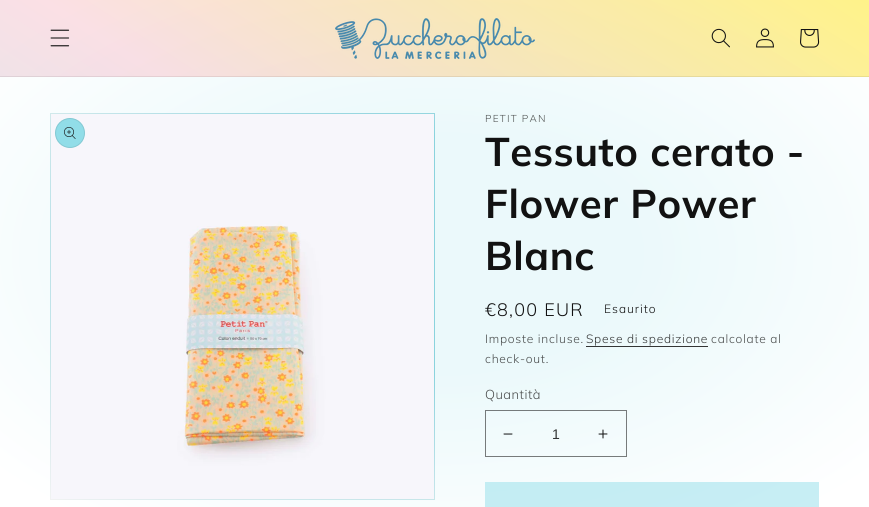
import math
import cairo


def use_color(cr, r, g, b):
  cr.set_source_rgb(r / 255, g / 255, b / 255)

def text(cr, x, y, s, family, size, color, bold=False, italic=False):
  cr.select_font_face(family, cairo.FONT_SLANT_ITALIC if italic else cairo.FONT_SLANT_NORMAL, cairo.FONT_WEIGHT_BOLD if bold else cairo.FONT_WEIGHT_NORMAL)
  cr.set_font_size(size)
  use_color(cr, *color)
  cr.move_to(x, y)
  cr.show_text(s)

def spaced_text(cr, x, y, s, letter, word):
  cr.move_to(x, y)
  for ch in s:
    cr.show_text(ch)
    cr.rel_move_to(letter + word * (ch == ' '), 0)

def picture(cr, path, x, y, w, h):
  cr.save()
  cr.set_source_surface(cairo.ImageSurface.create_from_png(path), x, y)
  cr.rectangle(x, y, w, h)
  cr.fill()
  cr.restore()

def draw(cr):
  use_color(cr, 255, 255, 255)
  cr.paint()
  gradient = cairo.RadialGradient(0, 0, 0, 0, 0, 1)
  gradient.set_matrix(cairo.Matrix(1 / 614, 0, 0, 1 / 359, -1 * 435 / 614, -1 * 254 / 359))
  gradient.add_color_stop_rgba(0.33, 0.922, 0.976, 0.984, 1)
  gradient.add_color_stop_rgba(0.94, 1, 1, 1, 1)
  cr.set_source(gradient)
  cr.rectangle(0, 0, 869, 507)
  cr.fill()
  gradient = cairo.RadialGradient(0, 0, 0, 0, 0, 1)
  gradient.set_matrix(cairo.Matrix(1 / 614, 0, 0, 1 / 359, -1 * 435 / 614, -1 * 254 / 359))
  gradient.add_color_stop_rgba(0.33, 0.745, 0.922, 0.949, 1)
  gradient.add_color_stop_rgba(0.94, 0.784, 0.933, 0.957, 1)
  cr.set_source(gradient)
  cr.rectangle(485, 482, 334, 25)
  cr.fill()
  gradient = cairo.RadialGradient(0, 0, 0, 0, 0, 1)
  gradient.set_matrix(cairo.Matrix(1 / 614, 0, 0, 1 / 359, -1 * 435 / 614, -1 * 254 / 359))
  gradient.add_color_stop_rgba(0.33, 0.2, 0.208, 0.208, 1)
  gradient.add_color_stop_rgba(0.94, 0.212, 0.212, 0.212, 1)
  cr.set_source(gradient)
  cr.rectangle(586, 346, 122, 1)
  cr.fill()
  gradient = cairo.LinearGradient(190, 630, 679, -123)
  gradient.add_color_stop_rgba(0, 0.569, 0.867, 0.91, 0.5)
  gradient.add_color_stop_rgba(0.5, 0.973, 0.757, 0.8, 0.5)
  gradient.add_color_stop_rgba(1, 0.996, 0.906, 0.082, 0.5)
  cr.set_source(gradient)
  cr.rectangle(0, 0, 869, 77)
  cr.fill()
  cr.set_source_rgba(0.071, 0.071, 0.071, 0.08)
  cr.rectangle(0, 76, 869, 1)
  cr.fill()
  picture(cr, "img_01.png", 50, 29, 20, 18)
  picture(cr, "img_02.png", 335, 18, 200, 41)
  picture(cr, "img_03.png", 711, 28, 19, 20)
  picture(cr, "img_04.png", 756, 28, 18, 20)
  picture(cr, "img_05.png", 800, 29, 20, 19)
  gradient = cairo.RadialGradient(0, 0, 0, 0, 0, 1)
  gradient.set_matrix(cairo.Matrix(1 / 614, 0, 0, 1 / 359, -1 * 435 / 614, -1 * 254 / 359))
  gradient.add_color_stop_rgba(0.33, 0.569, 0.867, 0.91, 1)
  gradient.add_color_stop_rgba(0.94, 1, 1, 1, 1)
  cr.set_source(gradient)
  cr.rectangle(50, 113, 385, 387)
  cr.fill()
  cr.rectangle(50.5, 113.5, 384, 386)
  cr.set_source_rgba(0.071, 0.071, 0.071, 0.05)
  cr.set_line_width(1)
  cr.stroke()
  picture(cr, "img_06.png", 51, 114, 383, 385)
  use_color(cr, 145, 221, 232)
  cr.arc(70, 133, 15, 0, 2 * math.pi)
  cr.fill()
  cr.arc(70, 133, 14.5, 0, 2 * math.pi)
  cr.set_source_rgba(0.071, 0.071, 0.071, 0.1)
  cr.stroke()
  picture(cr, "img_07.png", 64, 127, 12, 12)
  picture(cr, "img_08.png", 503, 433, 10, 2)
  picture(cr, "img_09.png", 598, 429, 10, 10)
  cr.rectangle(485.5, 410.5, 141, 46)
  cr.set_source_rgba(0.071, 0.071, 0.071, 0.55)
  cr.stroke()
  cr.select_font_face("Muli Light")
  cr.set_font_size(10)
  use_color(cr, 73, 76, 76)
  spaced_text(cr, 485, 122, "PETIT PAN", 1.25, 0)
  cr.select_font_face("Muli", cairo.FONT_SLANT_NORMAL, cairo.FONT_WEIGHT_BOLD)
  cr.set_font_size(40)
  use_color(cr, 18, 18, 18)
  spaced_text(cr, 485, 166, "Tessuto cerato -", 0.6, 0)
  spaced_text(cr, 485, 218, "Flower Power", 0.6, 0)
  spaced_text(cr, 485, 270, "Blanc", 0.6, 0)
  cr.select_font_face("Muli Light")
  cr.set_font_size(18)
  spaced_text(cr, 485, 316, "€8,00 EUR", 1.25, 0)
  cr.set_font_size(12)
  spaced_text(cr, 604, 313, "Esaurito", 1, 0)
  use_color(cr, 73, 76, 76)
  spaced_text(cr, 485, 343, "Imposte incluse.", 0.75, 0)
  use_color(cr, 51, 53, 53)
  spaced_text(cr, 586, 343, "Spese di spedizione", 0.75, 0)
  use_color(cr, 73, 76, 76)
  spaced_text(cr, 711, 343, "calcolate al", 0.75, 0)
  spaced_text(cr, 485, 363, "check-out.", 0.75, 0)
  cr.set_font_size(13)
  spaced_text(cr, 485, 399, "Quantità", 0.5, 0)
  text(cr, 552, 439, "1", "Liberation Sans", 14, (51, 53, 53))


surface = cairo.ImageSurface(cairo.FORMAT_RGB24, 869, 507)
cr = cairo.Context(surface)
options = cairo.FontOptions()
options.set_hint_metrics(cairo.HINT_METRICS_OFF)
options.set_hint_style(cairo.HINT_STYLE_NONE)
cr.set_font_options(options)
cr.set_miter_limit(4)
draw(cr)
surface.write_to_png("out.png")
